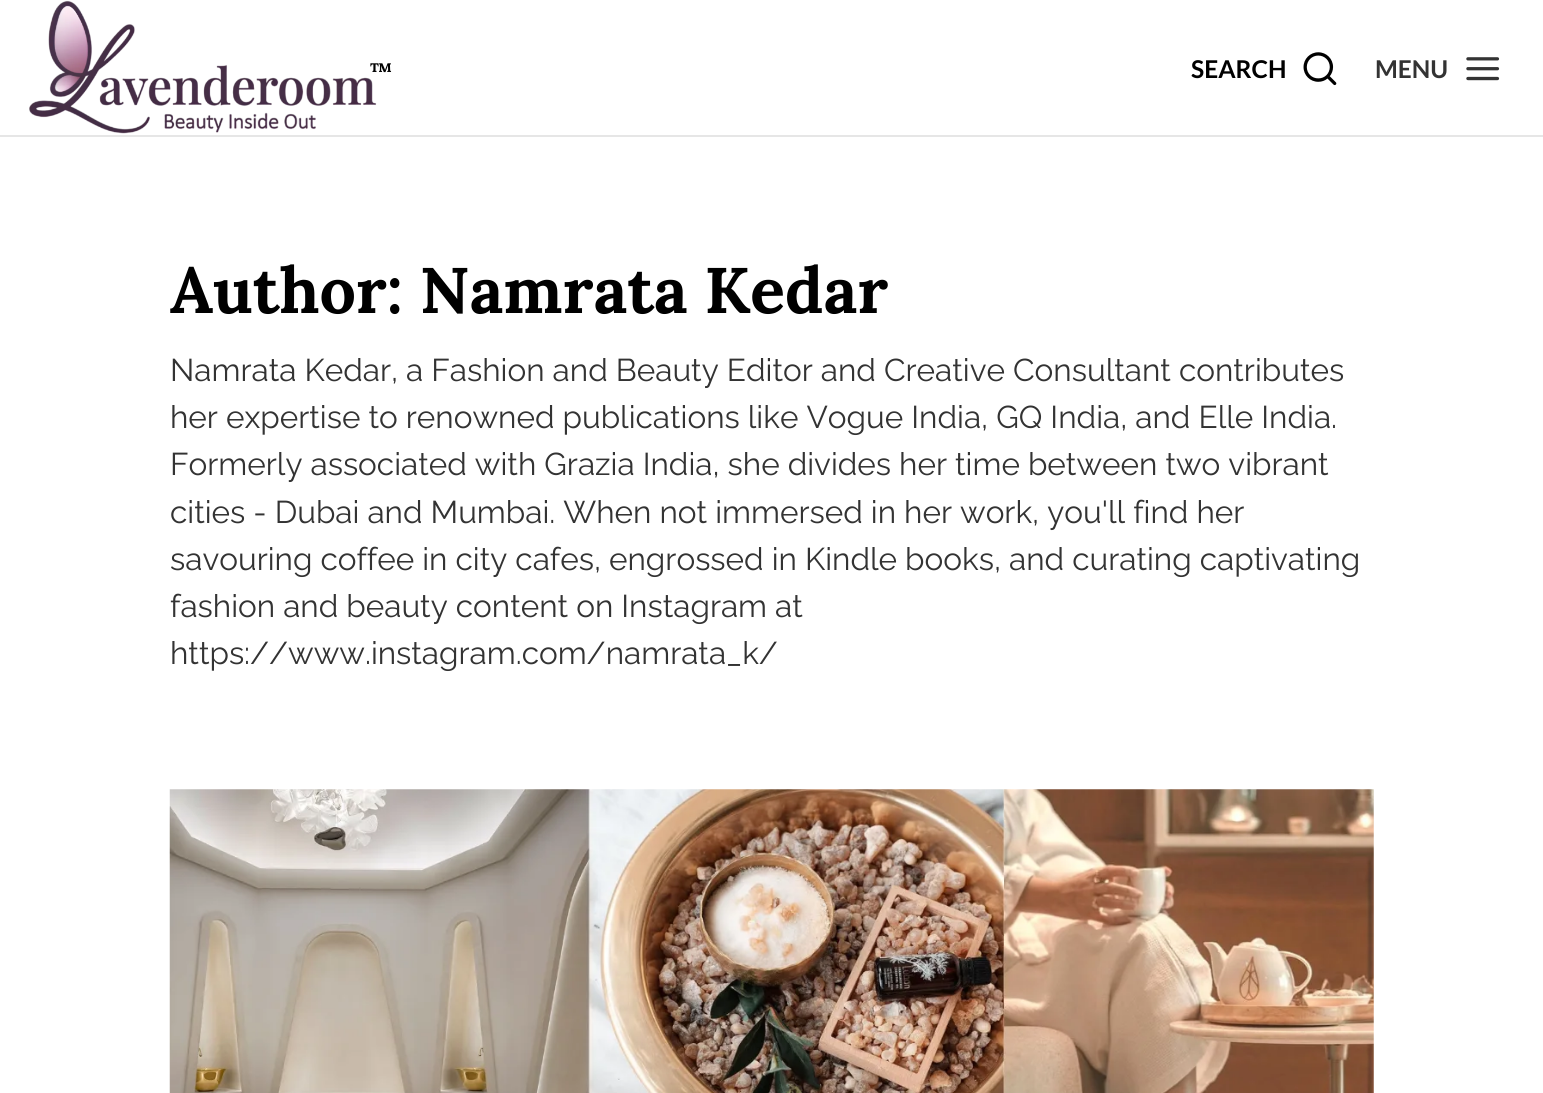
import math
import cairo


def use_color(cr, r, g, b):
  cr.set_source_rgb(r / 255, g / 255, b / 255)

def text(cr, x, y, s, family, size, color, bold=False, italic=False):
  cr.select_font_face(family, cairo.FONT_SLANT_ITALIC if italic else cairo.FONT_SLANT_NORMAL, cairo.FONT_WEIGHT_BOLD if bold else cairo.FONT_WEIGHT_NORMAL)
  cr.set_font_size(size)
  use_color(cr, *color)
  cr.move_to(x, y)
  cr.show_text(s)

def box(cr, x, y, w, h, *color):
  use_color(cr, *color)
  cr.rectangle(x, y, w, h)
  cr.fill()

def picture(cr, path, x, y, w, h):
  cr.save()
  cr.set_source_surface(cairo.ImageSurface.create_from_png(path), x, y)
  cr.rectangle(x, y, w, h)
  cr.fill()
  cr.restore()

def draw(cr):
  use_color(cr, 255, 255, 255)
  cr.paint()
  box(cr, 0, 135, 1543, 2, 230, 230, 230)
  picture(cr, "img_02.png", 1303, 52, 34, 34)
  picture(cr, "img_03.png", 1466, 57, 34, 24)
  picture(cr, "img_04.png", 169, 789, 1205, 304)
  text(cr, 369, 78, "™", "Lora", 21, (0, 0, 0), bold=True)
  picture(cr, "img_01.png", 29, 0, 348, 134)
  text(cr, 1191, 78, "SEARCH", "Lato", 24.5, (0, 0, 0), bold=True)
  text(cr, 1375, 78, "MENU", "Lato", 24.5, (51, 51, 51), bold=True)
  text(cr, 170, 313, "Author: Namrata Kedar", "Lora", 64.4, (0, 0, 0), bold=True)
  text(cr, 170, 381, "Namrata Kedar, a Fashion and Beauty Editor and Creative Consultant contributes", "Raleway", 31.5, (51, 51, 51))
  text(cr, 170, 428, "her expertise to renowned publications like Vogue India, GQ India, and Elle India.", "Raleway", 31.5, (51, 51, 51))
  text(cr, 170, 475, "Formerly associated with Grazia India, she divides her time between two vibrant", "Raleway", 31.5, (51, 51, 51))
  text(cr, 170, 523, "cities - Dubai and Mumbai. When not immersed in her work, you'll find her", "Raleway", 31.5, (51, 51, 51))
  text(cr, 170, 570, "savouring coffee in city cafes, engrossed in Kindle books, and curating captivating", "Raleway", 31.5, (51, 51, 51))
  text(cr, 170, 617, "fashion and beauty content on Instagram at", "Raleway", 31.5, (51, 51, 51))
  text(cr, 170, 664, "https://www.instagram.com/namrata_k/", "Raleway", 31.5, (51, 51, 51))


surface = cairo.ImageSurface(cairo.FORMAT_RGB24, 1543, 1093)
cr = cairo.Context(surface)
options = cairo.FontOptions()
options.set_hint_metrics(cairo.HINT_METRICS_OFF)
options.set_hint_style(cairo.HINT_STYLE_NONE)
cr.set_font_options(options)
cr.set_miter_limit(4)
draw(cr)
surface.write_to_png("out.png")
